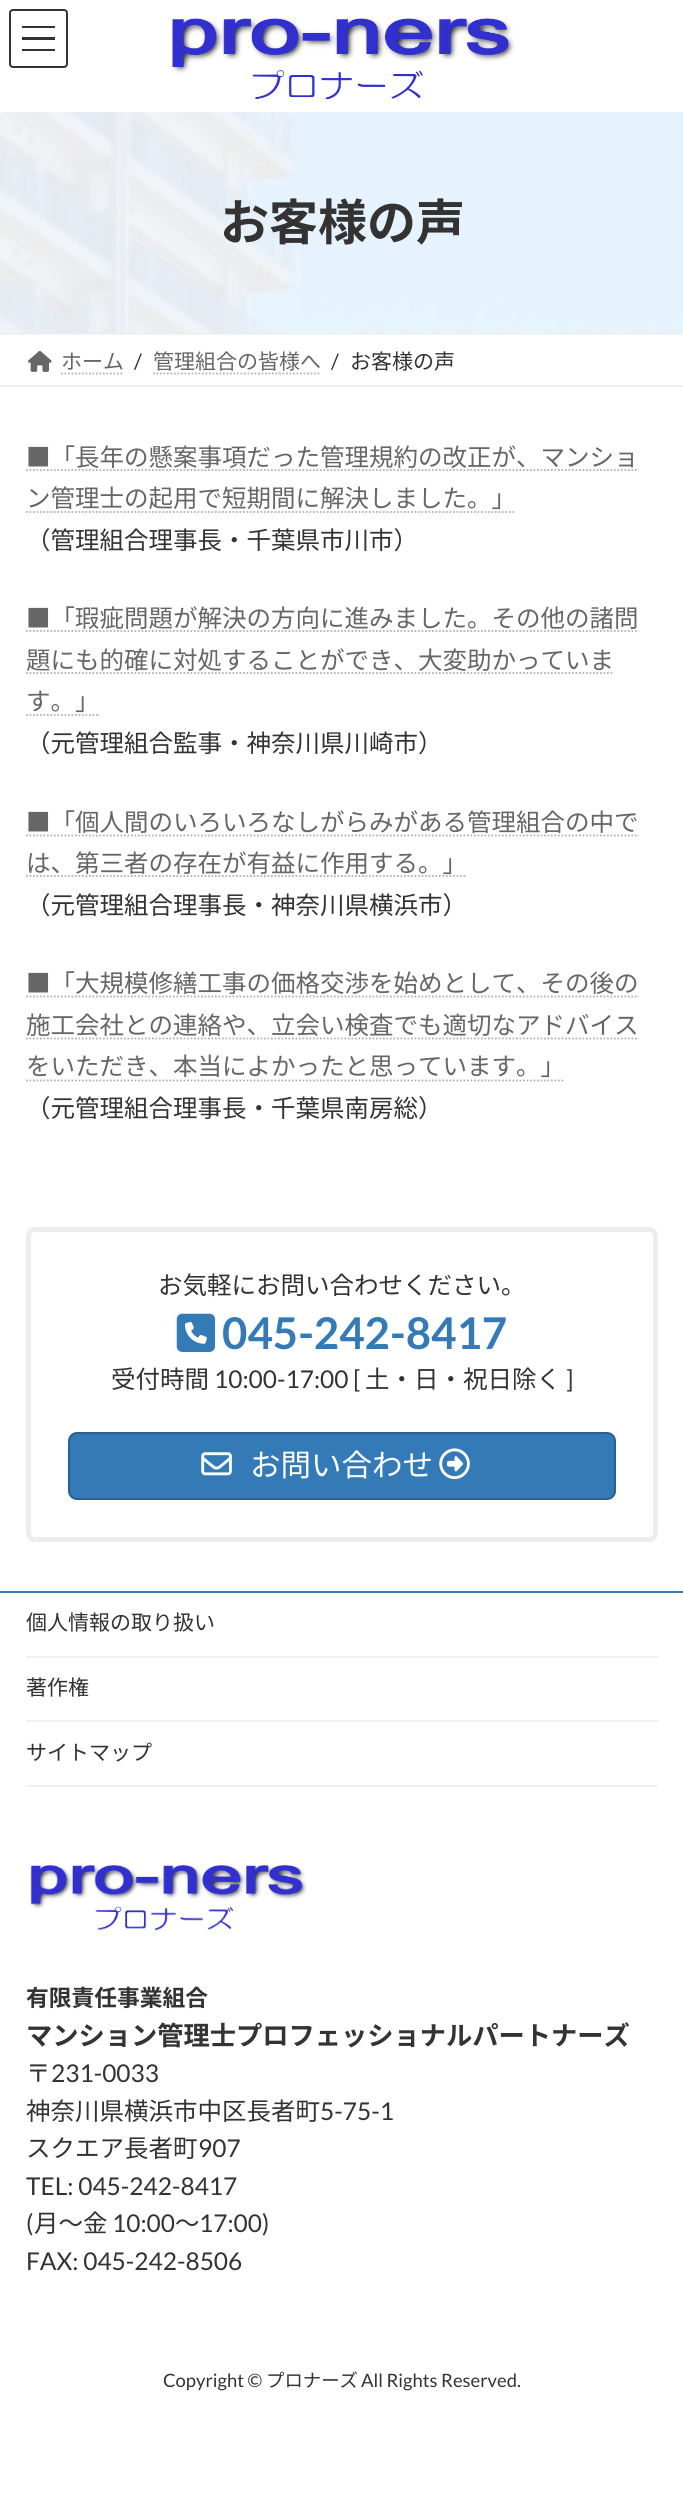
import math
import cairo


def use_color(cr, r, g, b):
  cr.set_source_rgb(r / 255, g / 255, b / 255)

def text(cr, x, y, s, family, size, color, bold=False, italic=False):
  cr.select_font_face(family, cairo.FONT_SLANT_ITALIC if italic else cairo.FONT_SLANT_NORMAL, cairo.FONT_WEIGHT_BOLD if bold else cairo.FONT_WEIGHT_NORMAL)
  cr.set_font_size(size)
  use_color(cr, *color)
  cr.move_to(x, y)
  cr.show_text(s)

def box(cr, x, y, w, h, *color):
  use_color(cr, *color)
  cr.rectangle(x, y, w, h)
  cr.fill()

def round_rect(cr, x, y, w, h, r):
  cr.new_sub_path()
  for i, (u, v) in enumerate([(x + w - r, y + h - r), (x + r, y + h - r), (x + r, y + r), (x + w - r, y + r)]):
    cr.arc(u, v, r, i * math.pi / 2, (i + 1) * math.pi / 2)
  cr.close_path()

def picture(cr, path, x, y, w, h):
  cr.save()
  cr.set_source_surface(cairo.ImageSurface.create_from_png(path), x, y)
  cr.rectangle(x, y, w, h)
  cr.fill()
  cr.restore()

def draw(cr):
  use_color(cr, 255, 255, 255)
  cr.paint()
  box(cr, 22, 26, 33, 2, 51, 51, 51)
  box(cr, 22, 37, 33, 3, 51, 51, 51)
  box(cr, 22, 49, 33, 2, 51, 51, 51)
  round_rect(cr, 10, 10, 57, 57, 3)
  cr.stroke()
  picture(cr, "img_01.png", 171, 17, 344, 83)
  picture(cr, "img_02.png", 0, 112, 683, 221)
  box(cr, 0, 333, 683, 2, 240, 240, 240)
  box(cr, 0, 385, 683, 2, 240, 240, 240)
  picture(cr, "img_03.png", 28, 350, 24, 22)
  cr.new_path()
  cr.move_to(61, 373.5)
  cr.line_to(124, 373.5)
  use_color(cr, 179, 179, 179)
  cr.set_line_width(1.8)
  cr.set_dash([1.75, 1.75])
  cr.stroke()
  cr.new_path()
  cr.move_to(153, 373.5)
  cr.line_to(321, 373.5)
  cr.stroke()
  cr.new_path()
  cr.move_to(26, 470)
  cr.line_to(639, 470)
  cr.stroke()
  cr.new_path()
  cr.move_to(26, 512)
  cr.line_to(516, 512)
  cr.stroke()
  cr.new_path()
  cr.move_to(26, 631)
  cr.line_to(639, 631)
  cr.stroke()
  cr.new_path()
  cr.move_to(26, 673)
  cr.line_to(614, 673)
  cr.stroke()
  cr.new_path()
  cr.move_to(26, 715)
  cr.line_to(100, 715)
  cr.stroke()
  cr.new_path()
  cr.move_to(26, 835.5)
  cr.line_to(639, 835.5)
  cr.stroke()
  cr.new_path()
  cr.move_to(26, 876)
  cr.line_to(467, 876)
  cr.stroke()
  cr.new_path()
  cr.move_to(26, 996.5)
  cr.line_to(639, 996.5)
  cr.stroke()
  cr.new_path()
  cr.move_to(26, 1038.5)
  cr.line_to(639, 1038.5)
  cr.stroke()
  cr.new_path()
  cr.move_to(26, 1080.5)
  cr.line_to(565, 1080.5)
  cr.stroke()
  round_rect(cr, 28.5, 1229.5, 627, 310, 6.5)
  use_color(cr, 237, 237, 237)
  cr.set_line_width(5)
  cr.set_dash([])
  cr.stroke()
  cr.set_source_rgba(1, 1, 1, 0.8)
  cr.set_fill_rule(cairo.FILL_RULE_EVEN_ODD)
  cr.new_path()
  cr.move_to(36, 1232)
  cr.curve_to(34, 1232, 32, 1234, 32, 1236)
  cr.line_to(32, 1533)
  cr.curve_to(32, 1535, 34, 1537, 36, 1537)
  cr.line_to(649, 1537)
  cr.curve_to(651, 1537, 653, 1535, 653, 1533)
  cr.line_to(653, 1236)
  cr.curve_to(653, 1234, 651, 1232, 649, 1232)
  cr.close_path()
  cr.move_to(34, 1234)
  cr.line_to(34, 1535)
  cr.line_to(651, 1535)
  cr.line_to(651, 1234)
  cr.close_path()
  cr.fill()
  picture(cr, "img_04.png", 176, 1313, 40, 39)
  use_color(cr, 51, 122, 183)
  round_rect(cr, 69, 1433, 546, 66, 8)
  cr.fill_preserve()
  use_color(cr, 41, 98, 146)
  cr.set_line_width(2)
  cr.stroke()
  picture(cr, "img_05.png", 201, 1452, 31, 24)
  picture(cr, "img_06.png", 439, 1448, 31, 32)
  box(cr, 0, 1591, 683, 2, 51, 122, 183)
  box(cr, 26, 1656, 632, 2, 240, 240, 240)
  box(cr, 26, 1720, 632, 2, 240, 240, 240)
  box(cr, 26, 1785, 632, 2, 240, 240, 240)
  picture(cr, "img_07.png", 30, 1864, 277, 67)
  text(cr, 220, 240, "お客様の声", "Noto Sans JP", 49, (51, 51, 51), bold=True)
  text(cr, 61, 369, "ホーム", "Noto Sans JP", 21, (102, 102, 102))
  text(cr, 134, 369, "/", "Lato", 21, (51, 51, 51))
  text(cr, 153, 369, "管理組合の皆様へ", "Noto Sans JP", 21, (102, 102, 102))
  text(cr, 331, 369, "/", "Lato", 21, (51, 51, 51))
  text(cr, 350, 369, "お客様の声", "Noto Sans JP", 21, (51, 51, 51))
  text(cr, 26, 466, "■「長年の懸案事項だった管理規約の改正が、マンショ", "Noto Sans JP", 24.5, (102, 102, 102))
  text(cr, 26, 507, "ン管理士の起用で短期間に解決しました。」", "Noto Sans JP", 24.5, (102, 102, 102))
  text(cr, 26, 549, "（管理組合理事長・千葉県市川市）", "Noto Sans JP", 24.5, (51, 51, 51))
  text(cr, 26, 627, "■「瑕疵問題が解決の方向に進みました。その他の諸問", "Noto Sans JP", 24.5, (102, 102, 102))
  text(cr, 26, 669, "題にも的確に対処することができ、大変助かっていま", "Noto Sans JP", 24.5, (102, 102, 102))
  text(cr, 26, 710, "す。」", "Noto Sans JP", 24.5, (102, 102, 102))
  text(cr, 26, 752, "（元管理組合監事・神奈川県川崎市）", "Noto Sans JP", 24.5, (51, 51, 51))
  text(cr, 26, 831, "■「個人間のいろいろなしがらみがある管理組合の中で", "Noto Sans JP", 24.5, (102, 102, 102))
  text(cr, 26, 872, "は、第三者の存在が有益に作用する。」", "Noto Sans JP", 24.5, (102, 102, 102))
  text(cr, 26, 914, "（元管理組合理事長・神奈川県横浜市）", "Noto Sans JP", 24.5, (51, 51, 51))
  text(cr, 26, 992, "■「大規模修繕工事の価格交渉を始めとして、その後の", "Noto Sans JP", 24.5, (102, 102, 102))
  text(cr, 26, 1034, "施工会社との連絡や、立会い検査でも適切なアドバイス", "Noto Sans JP", 24.5, (102, 102, 102))
  text(cr, 26, 1075, "をいただき、本当によかったと思っています。」", "Noto Sans JP", 24.5, (102, 102, 102))
  text(cr, 26, 1117, "（元管理組合理事長・千葉県南房総）", "Noto Sans JP", 24.5, (51, 51, 51))
  text(cr, 158, 1294, "お気軽にお問い合わせください。", "Noto Sans JP", 24.5, (51, 51, 51))
  text(cr, 222, 1349, "045-242-8417", "Lato", 43.75, (51, 122, 183), bold=True)
  text(cr, 111, 1388, "受付時間", "Noto Sans JP", 24.5, (51, 51, 51))
  text(cr, 214, 1388, "10:00-17:00 [", "Lato", 24.5, (51, 51, 51))
  text(cr, 365, 1388, "土・日・祝日除く", "Noto Sans JP", 24.5, (51, 51, 51))
  text(cr, 566, 1388, "]", "Lato", 24.5, (51, 51, 51))
  text(cr, 250, 1476, "お問い合わせ", "Noto Sans JP", 30.5, (255, 255, 255))
  text(cr, 26, 1630, "個人情報の取り扱い", "Noto Sans JP", 21, (51, 51, 51))
  text(cr, 26, 1695, "著作権", "Noto Sans JP", 21, (51, 51, 51))
  text(cr, 26, 1760, "サイトマップ", "Noto Sans JP", 21, (51, 51, 51))
  text(cr, 26, 2006, "有限責任事業組合", "Noto Sans JP", 22.75, (51, 51, 51), bold=True)
  text(cr, 26, 2045, "マンション管理士プロフェッショナルパートナーズ", "Noto Sans JP", 26.25, (51, 51, 51), bold=True)
  text(cr, 26, 2082, "〒", "Noto Sans JP", 24.5, (51, 51, 51))
  text(cr, 51, 2082, "231-0033", "Lato", 24.5, (51, 51, 51))
  text(cr, 26, 2120, "神奈川県横浜市中区長者町", "Noto Sans JP", 24.5, (51, 51, 51))
  text(cr, 320, 2120, "5-75-1", "Lato", 24.5, (51, 51, 51))
  text(cr, 26, 2157, "スクエア長者町", "Noto Sans JP", 24.5, (51, 51, 51))
  text(cr, 198, 2157, "907", "Lato", 24.5, (51, 51, 51))
  text(cr, 26, 2195, "TEL: 045-242-8417", "Lato", 24.5, (51, 51, 51))
  text(cr, 26, 2232, "(", "Lato", 24.5, (51, 51, 51))
  text(cr, 34, 2232, "月～金", "Noto Sans JP", 24.5, (51, 51, 51))
  text(cr, 112, 2232, "10:00", "Lato", 24.5, (51, 51, 51))
  text(cr, 175, 2232, "～", "Noto Sans JP", 24.5, (51, 51, 51))
  text(cr, 199, 2232, "17:00)", "Lato", 24.5, (51, 51, 51))
  text(cr, 26, 2270, "FAX: 045-242-8506", "Lato", 24.5, (51, 51, 51))
  text(cr, 163, 2387, "Copyright ©", "Lato", 18.4, (51, 51, 51))
  text(cr, 266, 2387, "プロナーズ", "Noto Sans JP", 18.4, (51, 51, 51))
  text(cr, 361, 2387, "All Rights Reserved.", "Lato", 18.4, (51, 51, 51))


surface = cairo.ImageSurface(cairo.FORMAT_RGB24, 683, 2495)
cr = cairo.Context(surface)
options = cairo.FontOptions()
options.set_hint_metrics(cairo.HINT_METRICS_OFF)
options.set_hint_style(cairo.HINT_STYLE_NONE)
cr.set_font_options(options)
cr.set_miter_limit(4)
draw(cr)
surface.write_to_png("out.png")
